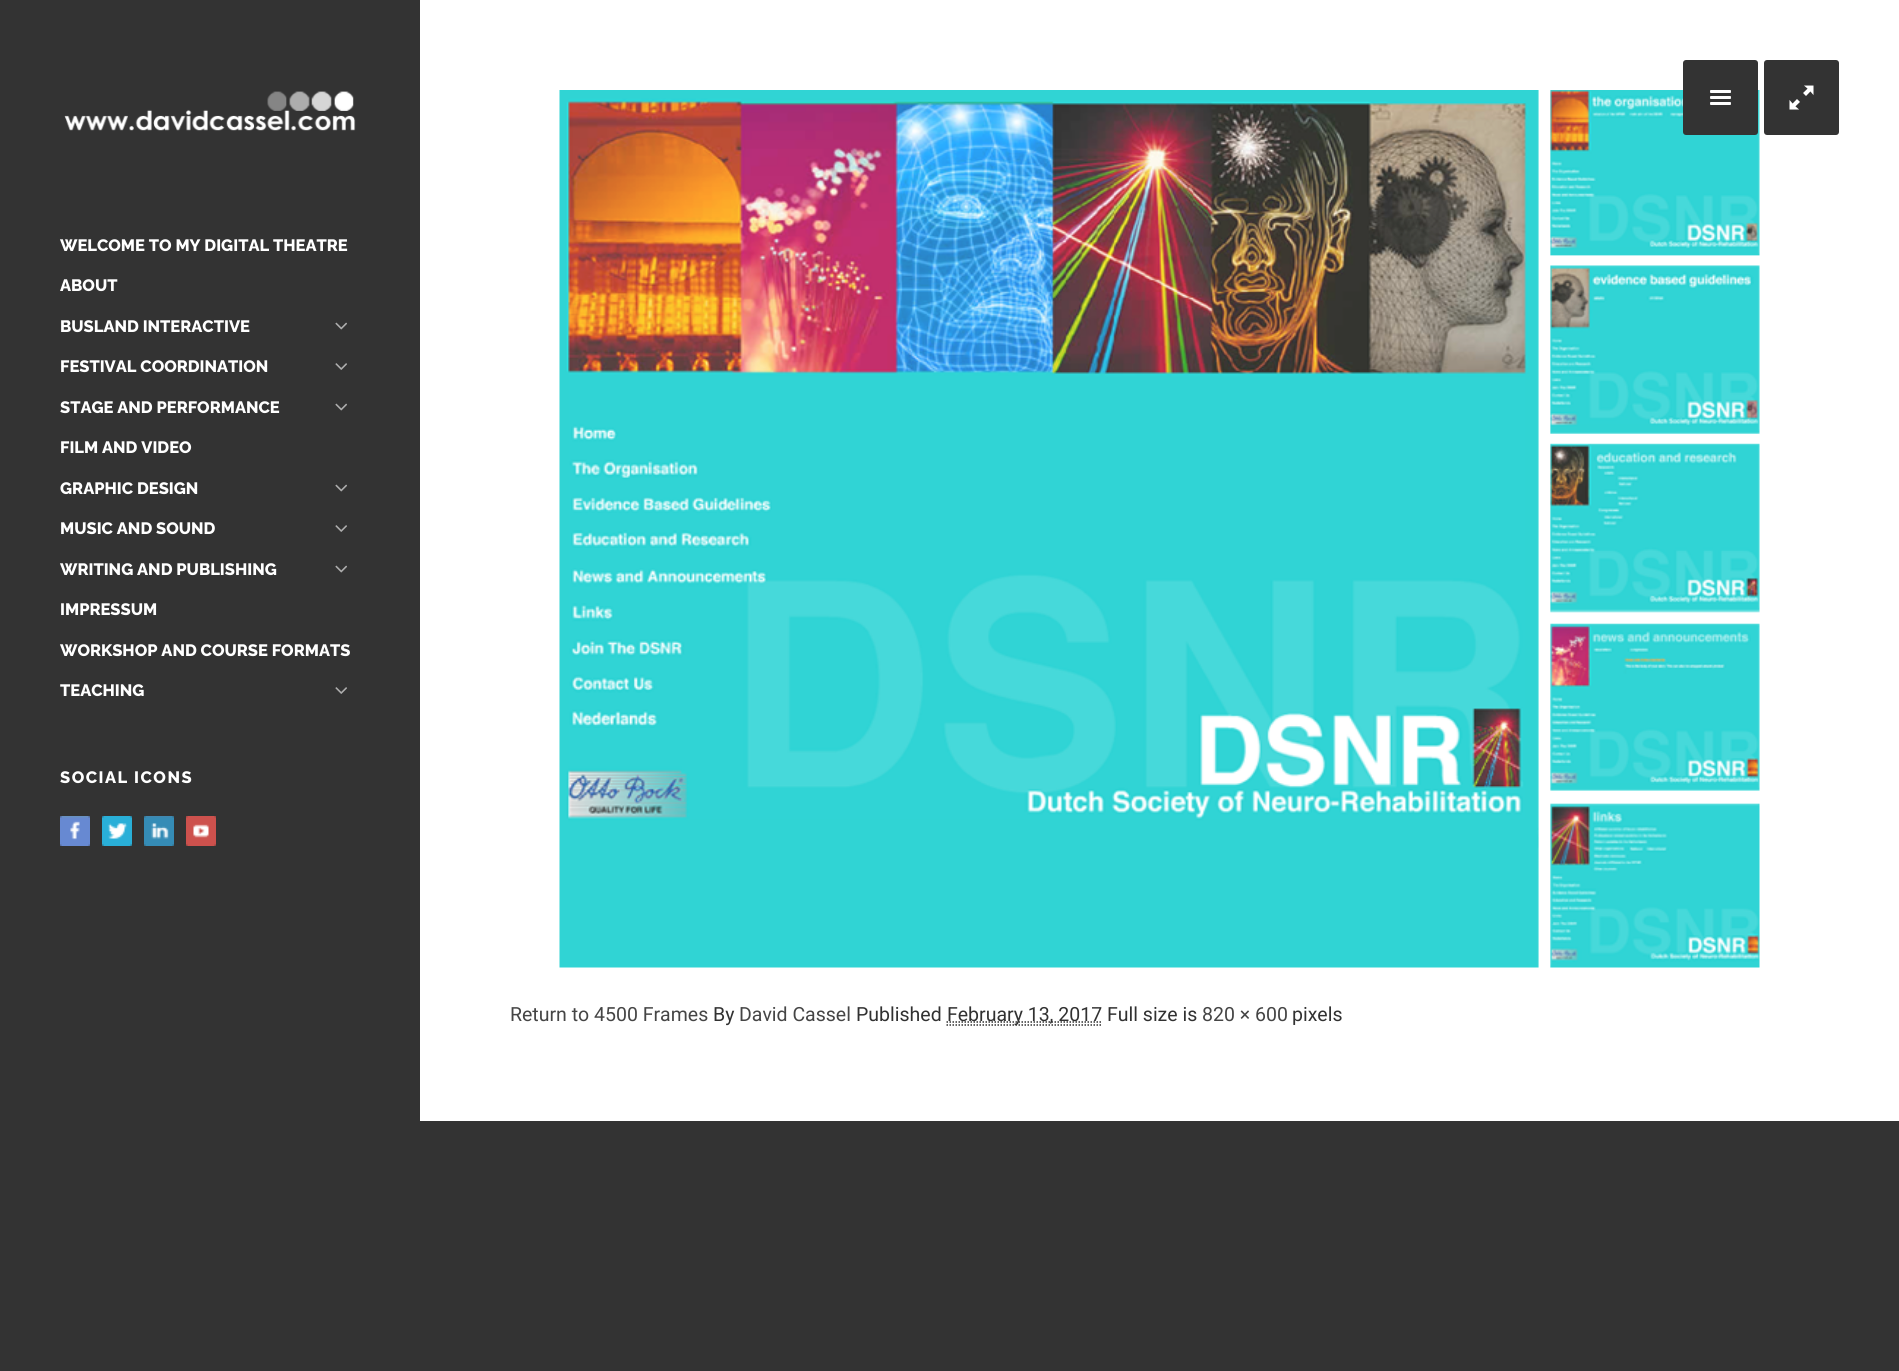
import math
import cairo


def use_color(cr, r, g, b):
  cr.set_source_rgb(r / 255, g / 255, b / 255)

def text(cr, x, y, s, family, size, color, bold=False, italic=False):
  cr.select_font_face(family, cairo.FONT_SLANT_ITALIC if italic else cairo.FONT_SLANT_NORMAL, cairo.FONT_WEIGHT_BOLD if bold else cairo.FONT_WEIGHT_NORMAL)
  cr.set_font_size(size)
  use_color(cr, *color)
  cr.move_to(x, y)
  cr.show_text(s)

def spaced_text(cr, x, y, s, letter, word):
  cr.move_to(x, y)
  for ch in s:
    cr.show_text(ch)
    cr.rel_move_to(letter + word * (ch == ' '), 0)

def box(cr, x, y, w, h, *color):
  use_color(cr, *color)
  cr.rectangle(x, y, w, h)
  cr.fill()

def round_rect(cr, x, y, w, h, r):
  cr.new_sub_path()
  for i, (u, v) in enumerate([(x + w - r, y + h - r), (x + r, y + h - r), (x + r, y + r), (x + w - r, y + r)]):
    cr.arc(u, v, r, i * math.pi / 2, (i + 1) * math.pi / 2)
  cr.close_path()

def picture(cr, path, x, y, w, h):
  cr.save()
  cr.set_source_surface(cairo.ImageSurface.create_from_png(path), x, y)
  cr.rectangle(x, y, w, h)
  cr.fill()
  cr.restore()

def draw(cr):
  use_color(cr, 51, 51, 51)
  cr.paint()
  box(cr, 420, 0, 1479, 1121, 255, 255, 255)
  picture(cr, "img_10.png", 559, 90, 1201, 878)
  use_color(cr, 51, 51, 51)
  round_rect(cr, 1683, 60, 75, 75, 3)
  cr.fill()
  picture(cr, "img_01.png", 1710, 90, 21, 15)
  round_rect(cr, 1764, 60, 75, 75, 3)
  cr.fill()
  picture(cr, "img_02.png", 1789, 85, 25, 25)
  picture(cr, "img_03.png", 64, 91, 292, 40)
  picture(cr, "img_04.png", 335, 322, 12, 8)
  picture(cr, "img_05.png", 335, 363, 12, 7)
  picture(cr, "img_04.png", 335, 403, 12, 8)
  picture(cr, "img_04.png", 335, 484, 12, 8)
  picture(cr, "img_05.png", 335, 525, 12, 7)
  picture(cr, "img_04.png", 335, 565, 12, 8)
  picture(cr, "img_05.png", 335, 687, 12, 7)
  picture(cr, "img_06.png", 60, 816, 30, 30)
  picture(cr, "img_07.png", 102, 816, 30, 30)
  picture(cr, "img_08.png", 144, 816, 30, 30)
  picture(cr, "img_09.png", 186, 816, 30, 30)
  cr.new_path()
  cr.move_to(946.5, 1025)
  cr.line_to(1101, 1025)
  use_color(cr, 49, 49, 49)
  cr.set_line_width(1.5)
  cr.set_dash([1.5, 1.5])
  cr.stroke()
  cr.new_path()
  cr.move_to(946.5, 1022)
  cr.line_to(1101.5, 1022)
  cr.stroke()
  text(cr, 60, 251, "WELCOME TO MY DIGITAL THEATRE", "Raleway ExtraBold", 16.5, (255, 255, 255))
  text(cr, 60, 291, "ABOUT", "Raleway ExtraBold", 16.5, (255, 255, 255))
  text(cr, 60, 332, "BUSLAND INTERACTIVE", "Raleway ExtraBold", 16.5, (255, 255, 255))
  text(cr, 60, 372, "FESTIVAL COORDINATION", "Raleway ExtraBold", 16.5, (255, 255, 255))
  text(cr, 60, 413, "STAGE AND PERFORMANCE", "Raleway ExtraBold", 16.5, (255, 255, 255))
  text(cr, 60, 453, "FILM AND VIDEO", "Raleway ExtraBold", 16.5, (255, 255, 255))
  text(cr, 60, 494, "GRAPHIC DESIGN", "Raleway ExtraBold", 16.5, (255, 255, 255))
  text(cr, 60, 534, "MUSIC AND SOUND", "Raleway ExtraBold", 16.5, (255, 255, 255))
  text(cr, 60, 575, "WRITING AND PUBLISHING", "Raleway ExtraBold", 16.5, (255, 255, 255))
  text(cr, 60, 615, "IMPRESSUM", "Raleway ExtraBold", 16.5, (255, 255, 255))
  text(cr, 60, 656, "WORKSHOP AND COURSE FORMATS", "Raleway ExtraBold", 16.5, (255, 255, 255))
  text(cr, 60, 696, "TEACHING", "Raleway ExtraBold", 16.5, (255, 255, 255))
  spaced_text(cr, 60, 783, "SOCIAL ICONS", 1.5, 0)
  text(cr, 510, 1021, "Return to 4500 Frames", "Roboto", 19.5, (69, 69, 69))
  text(cr, 713, 1021, "By", "Roboto", 19.5, (49, 49, 49))
  text(cr, 739, 1021, "David Cassel", "Roboto", 19.5, (69, 69, 69))
  text(cr, 856, 1021, "Published", "Roboto", 19.5, (49, 49, 49))
  text(cr, 947, 1021, "February 13, 2017 Full size is", "Roboto", 19.5, (49, 49, 49))
  text(cr, 1202, 1021, "820 × 600", "Roboto", 19.5, (69, 69, 69))
  text(cr, 1292, 1021, "pixels", "Roboto", 19.5, (49, 49, 49))


surface = cairo.ImageSurface(cairo.FORMAT_RGB24, 1899, 1371)
cr = cairo.Context(surface)
options = cairo.FontOptions()
options.set_hint_metrics(cairo.HINT_METRICS_OFF)
options.set_hint_style(cairo.HINT_STYLE_NONE)
cr.set_font_options(options)
cr.set_miter_limit(4)
draw(cr)
surface.write_to_png("out.png")
